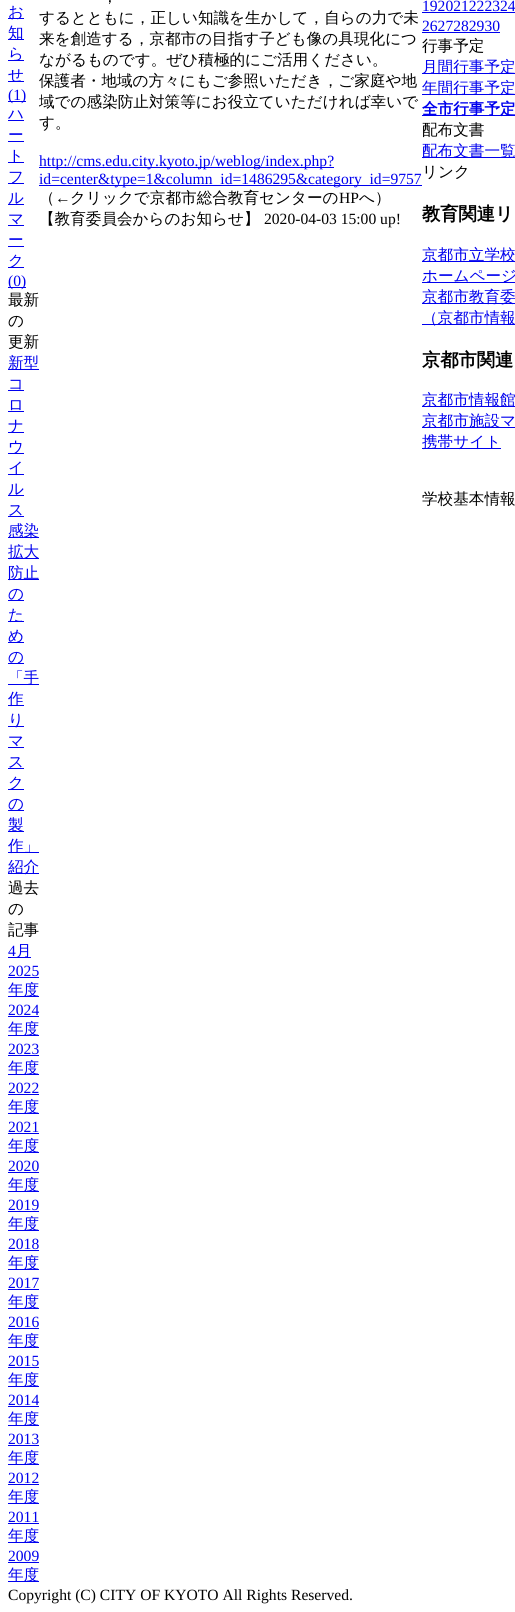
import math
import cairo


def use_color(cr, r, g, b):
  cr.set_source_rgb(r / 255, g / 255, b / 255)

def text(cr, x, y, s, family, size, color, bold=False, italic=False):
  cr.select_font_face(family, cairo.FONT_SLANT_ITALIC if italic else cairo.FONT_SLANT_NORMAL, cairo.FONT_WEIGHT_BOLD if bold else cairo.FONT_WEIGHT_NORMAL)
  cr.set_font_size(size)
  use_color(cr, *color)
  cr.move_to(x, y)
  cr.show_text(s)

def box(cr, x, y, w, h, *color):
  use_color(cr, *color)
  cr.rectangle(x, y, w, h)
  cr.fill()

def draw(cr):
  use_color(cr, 255, 255, 255)
  cr.paint()
  box(cr, 8, 18, 16, 1, 0, 0, 238)
  box(cr, 8, 39, 16, 1, 0, 0, 238)
  box(cr, 8, 60, 16, 1, 0, 0, 238)
  box(cr, 8, 81, 16, 1, 0, 0, 238)
  box(cr, 8, 101, 18, 1, 0, 0, 238)
  box(cr, 8, 120, 16, 1, 0, 0, 238)
  box(cr, 8, 141, 16, 1, 0, 0, 238)
  box(cr, 8, 162, 16, 1, 0, 0, 238)
  box(cr, 8, 183, 16, 1, 0, 0, 238)
  box(cr, 8, 204, 16, 1, 0, 0, 238)
  box(cr, 8, 225, 16, 1, 0, 0, 238)
  box(cr, 8, 246, 16, 1, 0, 0, 238)
  box(cr, 8, 267, 16, 1, 0, 0, 238)
  box(cr, 8, 287, 18, 1, 0, 0, 238)
  box(cr, 8, 369, 31, 1, 0, 0, 238)
  box(cr, 8, 390, 16, 1, 0, 0, 238)
  box(cr, 8, 411, 16, 1, 0, 0, 238)
  box(cr, 8, 432, 16, 1, 0, 0, 238)
  box(cr, 8, 453, 16, 1, 0, 0, 238)
  box(cr, 8, 474, 16, 1, 0, 0, 238)
  box(cr, 8, 495, 16, 1, 0, 0, 238)
  box(cr, 8, 516, 16, 1, 0, 0, 238)
  box(cr, 8, 537, 31, 1, 0, 0, 238)
  box(cr, 8, 558, 31, 1, 0, 0, 238)
  box(cr, 8, 579, 31, 1, 0, 0, 238)
  box(cr, 8, 600, 16, 1, 0, 0, 238)
  box(cr, 8, 621, 16, 1, 0, 0, 238)
  box(cr, 8, 642, 16, 1, 0, 0, 238)
  box(cr, 8, 663, 16, 1, 0, 0, 238)
  box(cr, 8, 684, 31, 1, 0, 0, 238)
  box(cr, 8, 705, 16, 1, 0, 0, 238)
  box(cr, 8, 726, 16, 1, 0, 0, 238)
  box(cr, 8, 747, 16, 1, 0, 0, 238)
  box(cr, 8, 768, 16, 1, 0, 0, 238)
  box(cr, 8, 789, 16, 1, 0, 0, 238)
  box(cr, 8, 810, 16, 1, 0, 0, 238)
  box(cr, 8, 831, 16, 1, 0, 0, 238)
  box(cr, 8, 852, 31, 1, 0, 0, 238)
  box(cr, 8, 873, 31, 1, 0, 0, 238)
  box(cr, 8, 957, 23, 1, 0, 0, 238)
  box(cr, 8, 977, 31, 1, 0, 0, 238)
  box(cr, 8, 996, 31, 1, 0, 0, 238)
  box(cr, 8, 1016, 31, 1, 0, 0, 238)
  box(cr, 8, 1035, 31, 1, 0, 0, 238)
  box(cr, 8, 1055, 31, 1, 0, 0, 238)
  box(cr, 8, 1074, 31, 1, 0, 0, 238)
  box(cr, 8, 1094, 31, 1, 0, 0, 238)
  box(cr, 8, 1113, 31, 1, 0, 0, 238)
  box(cr, 8, 1133, 31, 1, 0, 0, 238)
  box(cr, 8, 1152, 31, 1, 0, 0, 238)
  box(cr, 8, 1172, 31, 1, 0, 0, 238)
  box(cr, 8, 1191, 31, 1, 0, 0, 238)
  box(cr, 8, 1211, 31, 1, 0, 0, 238)
  box(cr, 8, 1230, 31, 1, 0, 0, 238)
  box(cr, 8, 1250, 31, 1, 0, 0, 238)
  box(cr, 8, 1269, 31, 1, 0, 0, 238)
  box(cr, 8, 1289, 31, 1, 0, 0, 238)
  box(cr, 8, 1308, 31, 1, 0, 0, 238)
  box(cr, 8, 1328, 31, 1, 0, 0, 238)
  box(cr, 8, 1347, 31, 1, 0, 0, 238)
  box(cr, 8, 1367, 31, 1, 0, 0, 238)
  box(cr, 8, 1386, 31, 1, 0, 0, 238)
  box(cr, 8, 1406, 31, 1, 0, 0, 238)
  box(cr, 8, 1425, 31, 1, 0, 0, 238)
  box(cr, 8, 1445, 31, 1, 0, 0, 238)
  box(cr, 8, 1464, 31, 1, 0, 0, 238)
  box(cr, 8, 1484, 31, 1, 0, 0, 238)
  box(cr, 8, 1503, 31, 1, 0, 0, 238)
  box(cr, 8, 1523, 31, 1, 0, 0, 238)
  box(cr, 8, 1542, 31, 1, 0, 0, 238)
  box(cr, 8, 1562, 31, 1, 0, 0, 238)
  box(cr, 8, 1581, 31, 1, 0, 0, 238)
  box(cr, 39, 167, 295, 1, 0, 0, 238)
  box(cr, 39, 185, 383, 1, 0, 0, 238)
  box(cr, 422, 12, 93, 1, 0, 0, 238)
  box(cr, 422, 32, 78, 1, 0, 0, 238)
  box(cr, 422, 73, 93, 1, 0, 0, 238)
  box(cr, 422, 94, 93, 1, 0, 0, 238)
  box(cr, 422, 115, 93, 1, 0, 0, 238)
  box(cr, 422, 157, 93, 1, 0, 0, 238)
  box(cr, 422, 261, 93, 1, 0, 0, 238)
  box(cr, 422, 282, 93, 1, 0, 0, 238)
  box(cr, 422, 303, 93, 1, 0, 0, 238)
  box(cr, 422, 324, 93, 1, 0, 0, 238)
  box(cr, 422, 406, 93, 1, 0, 0, 238)
  box(cr, 422, 427, 93, 1, 0, 0, 238)
  box(cr, 422, 448, 79, 1, 0, 0, 238)
  text(cr, 8, 17, "お", "WenQuanYi Zen Hei Medium", 15.6, (0, 0, 238))
  text(cr, 8, 38, "知", "WenQuanYi Zen Hei Medium", 15.6, (0, 0, 238))
  text(cr, 8, 59, "ら", "WenQuanYi Zen Hei Medium", 15.6, (0, 0, 238))
  text(cr, 8, 80, "せ", "WenQuanYi Zen Hei Medium", 15.6, (0, 0, 238))
  text(cr, 8, 100, "(1)", "Liberation Serif", 15.6, (0, 0, 238))
  text(cr, 8, 119, "ハ", "WenQuanYi Zen Hei Medium", 15.6, (0, 0, 238))
  text(cr, 8, 140, "ー", "WenQuanYi Zen Hei Medium", 15.6, (0, 0, 238))
  text(cr, 8, 161, "ト", "WenQuanYi Zen Hei Medium", 15.6, (0, 0, 238))
  text(cr, 8, 182, "フ", "WenQuanYi Zen Hei Medium", 15.6, (0, 0, 238))
  text(cr, 8, 203, "ル", "WenQuanYi Zen Hei Medium", 15.6, (0, 0, 238))
  text(cr, 8, 224, "マ", "WenQuanYi Zen Hei Medium", 15.6, (0, 0, 238))
  text(cr, 8, 245, "ー", "WenQuanYi Zen Hei Medium", 15.6, (0, 0, 238))
  text(cr, 8, 266, "ク", "WenQuanYi Zen Hei Medium", 15.6, (0, 0, 238))
  text(cr, 8, 286, "(0)", "Liberation Serif", 15.6, (0, 0, 238))
  text(cr, 8, 305, "最新", "WenQuanYi Zen Hei Medium", 15.6, (0, 0, 0))
  text(cr, 8, 326, "の", "WenQuanYi Zen Hei Medium", 15.6, (0, 0, 0))
  text(cr, 8, 347, "更新", "WenQuanYi Zen Hei Medium", 15.6, (0, 0, 0))
  text(cr, 8, 368, "新型", "WenQuanYi Zen Hei Medium", 15.6, (0, 0, 238))
  text(cr, 8, 389, "コ", "WenQuanYi Zen Hei Medium", 15.6, (0, 0, 238))
  text(cr, 8, 410, "ロ", "WenQuanYi Zen Hei Medium", 15.6, (0, 0, 238))
  text(cr, 8, 431, "ナ", "WenQuanYi Zen Hei Medium", 15.6, (0, 0, 238))
  text(cr, 8, 452, "ウ", "WenQuanYi Zen Hei Medium", 15.6, (0, 0, 238))
  text(cr, 8, 473, "イ", "WenQuanYi Zen Hei Medium", 15.6, (0, 0, 238))
  text(cr, 8, 494, "ル", "WenQuanYi Zen Hei Medium", 15.6, (0, 0, 238))
  text(cr, 8, 515, "ス", "WenQuanYi Zen Hei Medium", 15.6, (0, 0, 238))
  text(cr, 8, 536, "感染", "WenQuanYi Zen Hei Medium", 15.6, (0, 0, 238))
  text(cr, 8, 557, "拡大", "WenQuanYi Zen Hei Medium", 15.6, (0, 0, 238))
  text(cr, 8, 578, "防止", "WenQuanYi Zen Hei Medium", 15.6, (0, 0, 238))
  text(cr, 8, 599, "の", "WenQuanYi Zen Hei Medium", 15.6, (0, 0, 238))
  text(cr, 8, 620, "た", "WenQuanYi Zen Hei Medium", 15.6, (0, 0, 238))
  text(cr, 8, 641, "め", "WenQuanYi Zen Hei Medium", 15.6, (0, 0, 238))
  text(cr, 8, 662, "の", "WenQuanYi Zen Hei Medium", 15.6, (0, 0, 238))
  text(cr, 8, 683, "「手", "WenQuanYi Zen Hei Medium", 15.6, (0, 0, 238))
  text(cr, 8, 704, "作", "WenQuanYi Zen Hei Medium", 15.6, (0, 0, 238))
  text(cr, 8, 725, "り", "WenQuanYi Zen Hei Medium", 15.6, (0, 0, 238))
  text(cr, 8, 746, "マ", "WenQuanYi Zen Hei Medium", 15.6, (0, 0, 238))
  text(cr, 8, 767, "ス", "WenQuanYi Zen Hei Medium", 15.6, (0, 0, 238))
  text(cr, 8, 788, "ク", "WenQuanYi Zen Hei Medium", 15.6, (0, 0, 238))
  text(cr, 8, 809, "の", "WenQuanYi Zen Hei Medium", 15.6, (0, 0, 238))
  text(cr, 8, 830, "製", "WenQuanYi Zen Hei Medium", 15.6, (0, 0, 238))
  text(cr, 8, 851, "作」", "WenQuanYi Zen Hei Medium", 15.6, (0, 0, 238))
  text(cr, 8, 872, "紹介", "WenQuanYi Zen Hei Medium", 15.6, (0, 0, 238))
  text(cr, 8, 893, "過去", "WenQuanYi Zen Hei Medium", 15.6, (0, 0, 0))
  text(cr, 8, 914, "の", "WenQuanYi Zen Hei Medium", 15.6, (0, 0, 0))
  text(cr, 8, 935, "記事", "WenQuanYi Zen Hei Medium", 15.6, (0, 0, 0))
  text(cr, 8, 956, "4", "Liberation Serif", 15.6, (0, 0, 238))
  text(cr, 16, 956, "月", "WenQuanYi Zen Hei Medium", 15.6, (0, 0, 238))
  text(cr, 8, 976, "2025", "Liberation Serif", 15.6, (0, 0, 238))
  text(cr, 8, 995, "年度", "WenQuanYi Zen Hei Medium", 15.6, (0, 0, 238))
  text(cr, 8, 1015, "2024", "Liberation Serif", 15.6, (0, 0, 238))
  text(cr, 8, 1034, "年度", "WenQuanYi Zen Hei Medium", 15.6, (0, 0, 238))
  text(cr, 8, 1054, "2023", "Liberation Serif", 15.6, (0, 0, 238))
  text(cr, 8, 1073, "年度", "WenQuanYi Zen Hei Medium", 15.6, (0, 0, 238))
  text(cr, 8, 1093, "2022", "Liberation Serif", 15.6, (0, 0, 238))
  text(cr, 8, 1112, "年度", "WenQuanYi Zen Hei Medium", 15.6, (0, 0, 238))
  text(cr, 8, 1132, "2021", "Liberation Serif", 15.6, (0, 0, 238))
  text(cr, 8, 1151, "年度", "WenQuanYi Zen Hei Medium", 15.6, (0, 0, 238))
  text(cr, 8, 1171, "2020", "Liberation Serif", 15.6, (0, 0, 238))
  text(cr, 8, 1190, "年度", "WenQuanYi Zen Hei Medium", 15.6, (0, 0, 238))
  text(cr, 8, 1210, "2019", "Liberation Serif", 15.6, (0, 0, 238))
  text(cr, 8, 1229, "年度", "WenQuanYi Zen Hei Medium", 15.6, (0, 0, 238))
  text(cr, 8, 1249, "2018", "Liberation Serif", 15.6, (0, 0, 238))
  text(cr, 8, 1268, "年度", "WenQuanYi Zen Hei Medium", 15.6, (0, 0, 238))
  text(cr, 8, 1288, "2017", "Liberation Serif", 15.6, (0, 0, 238))
  text(cr, 8, 1307, "年度", "WenQuanYi Zen Hei Medium", 15.6, (0, 0, 238))
  text(cr, 8, 1327, "2016", "Liberation Serif", 15.6, (0, 0, 238))
  text(cr, 8, 1346, "年度", "WenQuanYi Zen Hei Medium", 15.6, (0, 0, 238))
  text(cr, 8, 1366, "2015", "Liberation Serif", 15.6, (0, 0, 238))
  text(cr, 8, 1385, "年度", "WenQuanYi Zen Hei Medium", 15.6, (0, 0, 238))
  text(cr, 8, 1405, "2014", "Liberation Serif", 15.6, (0, 0, 238))
  text(cr, 8, 1424, "年度", "WenQuanYi Zen Hei Medium", 15.6, (0, 0, 238))
  text(cr, 8, 1444, "2013", "Liberation Serif", 15.6, (0, 0, 238))
  text(cr, 8, 1463, "年度", "WenQuanYi Zen Hei Medium", 15.6, (0, 0, 238))
  text(cr, 8, 1483, "2012", "Liberation Serif", 15.6, (0, 0, 238))
  text(cr, 8, 1502, "年度", "WenQuanYi Zen Hei Medium", 15.6, (0, 0, 238))
  text(cr, 8, 1522, "2011", "Liberation Serif", 15.6, (0, 0, 238))
  text(cr, 8, 1541, "年度", "WenQuanYi Zen Hei Medium", 15.6, (0, 0, 238))
  text(cr, 8, 1561, "2009", "Liberation Serif", 15.6, (0, 0, 238))
  text(cr, 8, 1580, "年度", "WenQuanYi Zen Hei Medium", 15.6, (0, 0, 238))
  text(cr, 102, 2, "，", "WenQuanYi Zen Hei Medium", 15.6, (0, 0, 0))
  text(cr, 39, 23, "するとともに，正しい知識を生かして，自らの力で未", "WenQuanYi Zen Hei Medium", 15.6, (0, 0, 0))
  text(cr, 39, 44, "来を創造する，京都市の目指す子ども像の具現化につ", "WenQuanYi Zen Hei Medium", 15.6, (0, 0, 0))
  text(cr, 39, 65, "ながるものです。ぜひ積極的にご活用ください。", "WenQuanYi Zen Hei Medium", 15.6, (0, 0, 0))
  text(cr, 39, 86, "保護者・地域の方々にもご参照いただき，ご家庭や地", "WenQuanYi Zen Hei Medium", 15.6, (0, 0, 0))
  text(cr, 39, 107, "域での感染防止対策等にお役立ていただければ幸いで", "WenQuanYi Zen Hei Medium", 15.6, (0, 0, 0))
  text(cr, 39, 128, "す。", "WenQuanYi Zen Hei Medium", 15.6, (0, 0, 0))
  text(cr, 39, 166, "http://cms.edu.city.kyoto.jp/weblog/index.php?", "Liberation Serif", 15.6, (0, 0, 238))
  text(cr, 39, 184, "id=center&type=1&column_id=1486295&category_id=9757", "Liberation Serif", 15.6, (0, 0, 238))
  text(cr, 39, 203, "（", "WenQuanYi Zen Hei Medium", 15.6, (0, 0, 0))
  text(cr, 55, 203, "←", "Liberation Serif", 15.6, (0, 0, 0))
  text(cr, 70, 203, "クリックで京都市総合教育センターの", "WenQuanYi Zen Hei Medium", 15.6, (0, 0, 0))
  text(cr, 339, 203, "HP", "Liberation Serif", 15.6, (0, 0, 0))
  text(cr, 359, 203, "へ）", "WenQuanYi Zen Hei Medium", 15.6, (0, 0, 0))
  text(cr, 39, 224, "【教育委員会からのお知らせ】", "WenQuanYi Zen Hei Medium", 15.6, (0, 0, 0))
  text(cr, 264, 224, "2020-04-03 15:00 up!", "Liberation Serif", 15.6, (0, 0, 0))
  text(cr, 422, 11, "192021222324", "Liberation Serif", 15.6, (0, 0, 238))
  text(cr, 422, 31, "2627282930", "Liberation Serif", 15.6, (0, 0, 238))
  text(cr, 422, 51, "行事予定", "WenQuanYi Zen Hei Medium", 15.6, (0, 0, 0))
  text(cr, 422, 72, "月間行事予定", "WenQuanYi Zen Hei Medium", 15.6, (0, 0, 238))
  text(cr, 422, 93, "年間行事予定", "WenQuanYi Zen Hei Medium", 15.6, (0, 0, 238))
  text(cr, 422, 114, "全市行事予定", "WenQuanYi Zen Hei", 15.6, (0, 0, 238), bold=True)
  text(cr, 422, 135, "配布文書", "WenQuanYi Zen Hei Medium", 15.6, (0, 0, 0))
  text(cr, 422, 156, "配布文書一覧", "WenQuanYi Zen Hei Medium", 15.6, (0, 0, 238))
  text(cr, 422, 177, "リンク", "WenQuanYi Zen Hei Medium", 15.6, (0, 0, 0))
  text(cr, 422, 220, "教育関連リ", "WenQuanYi Zen Hei", 18.25, (0, 0, 0), bold=True)
  text(cr, 422, 260, "京都市立学校", "WenQuanYi Zen Hei Medium", 15.6, (0, 0, 238))
  text(cr, 422, 281, "ホームページ", "WenQuanYi Zen Hei Medium", 15.6, (0, 0, 238))
  text(cr, 422, 302, "京都市教育委", "WenQuanYi Zen Hei Medium", 15.6, (0, 0, 238))
  text(cr, 422, 323, "（京都市情報", "WenQuanYi Zen Hei Medium", 15.6, (0, 0, 238))
  text(cr, 422, 366, "京都市関連", "WenQuanYi Zen Hei", 18.25, (0, 0, 0), bold=True)
  text(cr, 422, 405, "京都市情報館", "WenQuanYi Zen Hei Medium", 15.6, (0, 0, 238))
  text(cr, 422, 426, "京都市施設マ", "WenQuanYi Zen Hei Medium", 15.6, (0, 0, 238))
  text(cr, 422, 447, "携帯サイト", "WenQuanYi Zen Hei Medium", 15.6, (0, 0, 238))
  text(cr, 422, 504, "学校基本情報", "WenQuanYi Zen Hei Medium", 15.6, (0, 0, 0))
  text(cr, 8, 1600, "Copyright (C) CITY OF KYOTO All Rights Reserved.", "Liberation Serif", 15.6, (0, 0, 0))


surface = cairo.ImageSurface(cairo.FORMAT_RGB24, 515, 1612)
cr = cairo.Context(surface)
options = cairo.FontOptions()
options.set_hint_metrics(cairo.HINT_METRICS_OFF)
options.set_hint_style(cairo.HINT_STYLE_NONE)
cr.set_font_options(options)
cr.set_miter_limit(4)
draw(cr)
surface.write_to_png("out.png")
